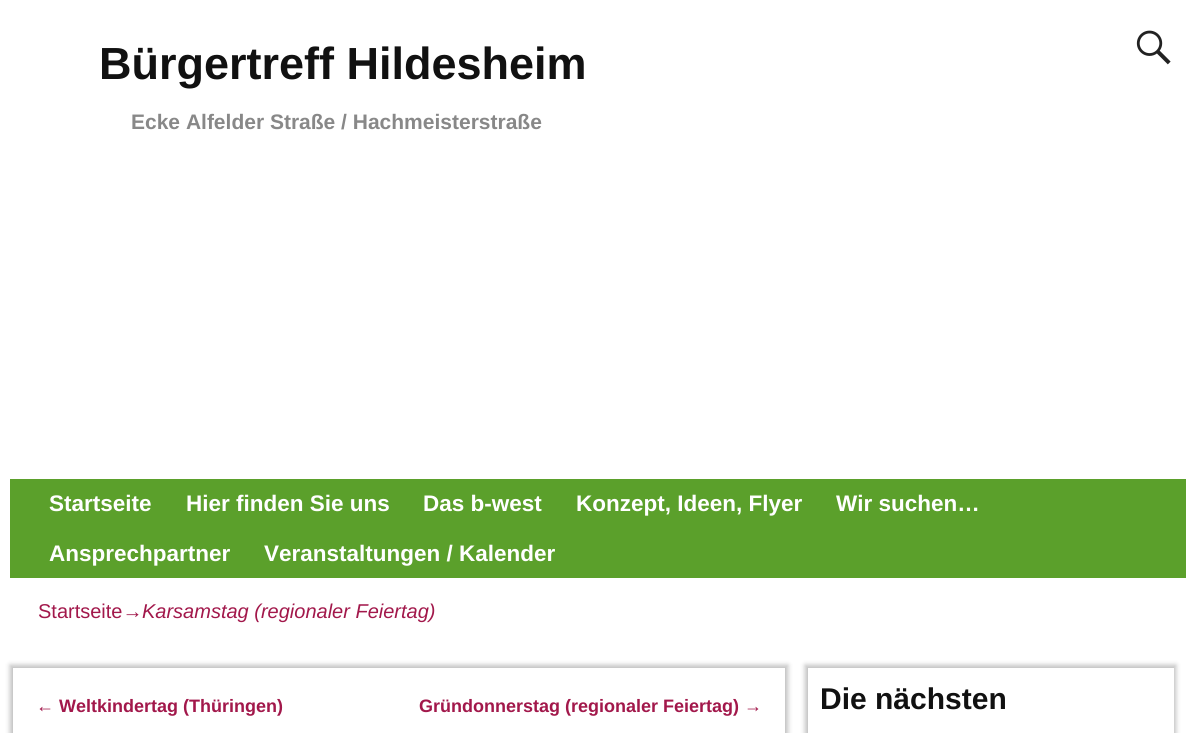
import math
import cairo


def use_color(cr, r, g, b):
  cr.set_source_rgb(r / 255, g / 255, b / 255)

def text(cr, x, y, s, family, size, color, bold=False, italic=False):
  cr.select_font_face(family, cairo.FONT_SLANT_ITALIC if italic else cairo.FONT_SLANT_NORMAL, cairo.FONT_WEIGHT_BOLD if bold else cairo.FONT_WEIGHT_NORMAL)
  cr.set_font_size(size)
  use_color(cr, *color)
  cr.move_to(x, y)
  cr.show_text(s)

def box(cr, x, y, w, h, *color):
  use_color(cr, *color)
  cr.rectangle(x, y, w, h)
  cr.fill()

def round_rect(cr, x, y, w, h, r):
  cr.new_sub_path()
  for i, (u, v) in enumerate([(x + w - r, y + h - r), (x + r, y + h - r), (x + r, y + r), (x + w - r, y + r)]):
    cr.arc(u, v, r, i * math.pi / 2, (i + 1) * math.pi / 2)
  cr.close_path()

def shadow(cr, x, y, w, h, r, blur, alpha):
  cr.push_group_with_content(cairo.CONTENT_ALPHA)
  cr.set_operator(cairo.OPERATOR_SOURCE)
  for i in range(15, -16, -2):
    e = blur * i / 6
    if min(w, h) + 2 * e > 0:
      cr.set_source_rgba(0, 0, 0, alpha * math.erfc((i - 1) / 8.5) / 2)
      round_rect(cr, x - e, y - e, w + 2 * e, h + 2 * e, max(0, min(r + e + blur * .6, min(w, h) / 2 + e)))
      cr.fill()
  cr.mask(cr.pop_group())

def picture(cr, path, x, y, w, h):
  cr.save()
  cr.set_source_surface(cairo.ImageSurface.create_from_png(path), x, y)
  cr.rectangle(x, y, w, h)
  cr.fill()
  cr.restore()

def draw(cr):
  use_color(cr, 255, 255, 255)
  cr.paint()
  picture(cr, "img_01.png", 1136, 30, 35, 35)
  box(cr, 10, 479, 1176, 99, 91, 160, 43)
  cr.save()
  cr.set_fill_rule(cairo.FILL_RULE_EVEN_ODD)
  cr.new_path()
  cr.move_to(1, 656)
  cr.line_to(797, 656)
  cr.line_to(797, 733)
  cr.line_to(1, 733)
  cr.close_path()
  cr.move_to(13, 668)
  cr.line_to(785, 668)
  cr.line_to(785, 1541)
  cr.line_to(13, 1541)
  cr.close_path()
  cr.clip()
  use_color(cr, 0, 0, 0)
  shadow(cr, 10, 665, 778, 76, 0, 2.5, 0.25)
  cr.restore()
  cr.save()
  cr.set_fill_rule(cairo.FILL_RULE_EVEN_ODD)
  cr.new_path()
  cr.move_to(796, 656)
  cr.line_to(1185, 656)
  cr.line_to(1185, 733)
  cr.line_to(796, 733)
  cr.close_path()
  cr.move_to(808, 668)
  cr.line_to(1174, 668)
  cr.line_to(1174, 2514)
  cr.line_to(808, 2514)
  cr.close_path()
  cr.clip()
  use_color(cr, 0, 0, 0)
  shadow(cr, 805, 665, 371, 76, 0, 2.5, 0.25)
  cr.restore()
  text(cr, 99, 79, "Bürgertreff Hildesheim", "Liberation Sans", 45, (17, 17, 17), bold=True)
  text(cr, 131, 129, "Ecke Alfelder Straße / Hachmeisterstraße", "Liberation Sans", 21, (136, 136, 136), bold=True)
  text(cr, 49, 511, "Startseite", "Liberation Sans", 22.5, (255, 255, 255), bold=True)
  text(cr, 186, 511, "Hier finden Sie uns", "Liberation Sans", 22.5, (255, 255, 255), bold=True)
  text(cr, 423, 511, "Das b-west", "Liberation Sans", 22.5, (255, 255, 255), bold=True)
  text(cr, 576, 511, "Konzept, Ideen, Flyer", "Liberation Sans", 22.5, (255, 255, 255), bold=True)
  text(cr, 836, 511, "Wir suchen…", "Liberation Sans", 22.5, (255, 255, 255), bold=True)
  text(cr, 49, 561, "Ansprechpartner", "Liberation Sans", 22.5, (255, 255, 255), bold=True)
  text(cr, 264, 561, "Veranstaltungen / Kalender", "Liberation Sans", 22.5, (255, 255, 255), bold=True)
  text(cr, 38, 618, "Startseite→", "Liberation Sans", 20, (162, 24, 75))
  text(cr, 142, 618, "Karsamstag (regionaler Feiertag)", "Liberation Sans", 20, (162, 24, 75), italic=True)
  text(cr, 36, 712, "←", "Liberation Sans", 18, (162, 24, 75))
  text(cr, 59, 712, "Weltkindertag (Thüringen)", "Liberation Sans", 18, (162, 24, 75), bold=True)
  text(cr, 419, 712, "Gründonnerstag (regionaler Feiertag)", "Liberation Sans", 18, (162, 24, 75), bold=True)
  text(cr, 744, 712, "→", "Liberation Sans", 18, (162, 24, 75))
  text(cr, 820, 709, "Die nächsten", "Liberation Sans", 30, (17, 17, 17), bold=True)


surface = cairo.ImageSurface(cairo.FORMAT_RGB24, 1196, 733)
cr = cairo.Context(surface)
options = cairo.FontOptions()
options.set_hint_metrics(cairo.HINT_METRICS_OFF)
options.set_hint_style(cairo.HINT_STYLE_NONE)
cr.set_font_options(options)
cr.set_miter_limit(4)
draw(cr)
surface.write_to_png("out.png")
